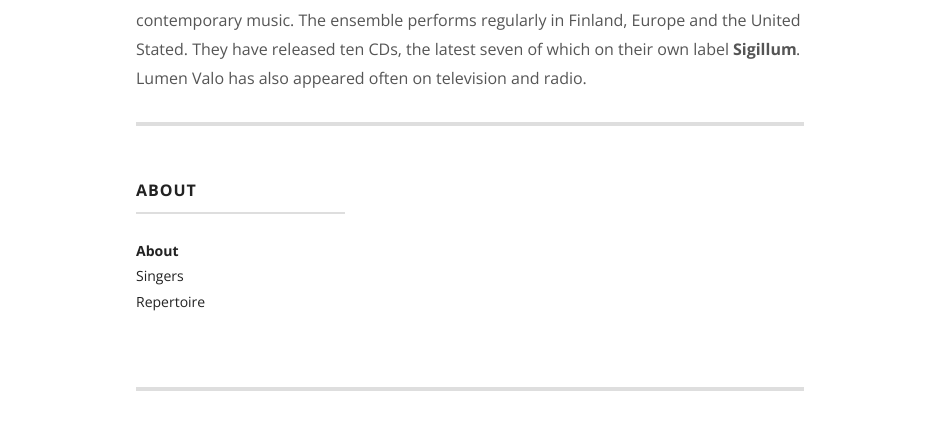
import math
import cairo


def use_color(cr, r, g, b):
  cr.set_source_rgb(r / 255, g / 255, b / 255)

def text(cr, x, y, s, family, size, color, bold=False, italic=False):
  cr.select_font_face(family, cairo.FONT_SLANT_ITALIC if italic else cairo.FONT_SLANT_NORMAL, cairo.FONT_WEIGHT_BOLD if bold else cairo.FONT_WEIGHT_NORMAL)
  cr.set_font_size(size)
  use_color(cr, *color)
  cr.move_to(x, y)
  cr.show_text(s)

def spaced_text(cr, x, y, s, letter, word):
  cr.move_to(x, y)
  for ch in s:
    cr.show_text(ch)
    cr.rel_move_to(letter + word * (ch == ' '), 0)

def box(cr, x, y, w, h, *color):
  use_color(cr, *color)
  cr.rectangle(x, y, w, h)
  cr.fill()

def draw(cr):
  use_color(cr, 255, 255, 255)
  cr.paint()
  box(cr, 136, 122, 668, 4, 222, 222, 222)
  box(cr, 136, 212, 209, 2, 222, 222, 222)
  box(cr, 136, 387, 668, 4, 222, 222, 222)
  text(cr, 136, 26, "contemporary music. The ensemble performs regularly in Finland, Europe and the United", "Open Sans", 16, (85, 85, 85))
  text(cr, 136, 55, "Stated. They have released ten CDs, the latest seven of which on their own label", "Open Sans", 16, (85, 85, 85))
  text(cr, 733, 55, "Sigillum", "Open Sans", 16, (85, 85, 85), bold=True)
  text(cr, 796, 55, ".", "Open Sans", 16, (85, 85, 85))
  text(cr, 136, 84, "Lumen Valo has also appeared often on television and radio.", "Open Sans", 16, (85, 85, 85))
  cr.select_font_face("Open Sans", cairo.FONT_SLANT_NORMAL, cairo.FONT_WEIGHT_BOLD)
  use_color(cr, 34, 34, 34)
  spaced_text(cr, 136, 196, "ABOUT", 1, 0)
  text(cr, 136, 256, "About", "Open Sans", 14, (34, 34, 34), bold=True)
  text(cr, 136, 281, "Singers", "Open Sans", 14, (34, 34, 34))
  text(cr, 136, 307, "Repertoire", "Open Sans", 14, (34, 34, 34))


surface = cairo.ImageSurface(cairo.FORMAT_RGB24, 939, 444)
cr = cairo.Context(surface)
options = cairo.FontOptions()
options.set_hint_metrics(cairo.HINT_METRICS_OFF)
options.set_hint_style(cairo.HINT_STYLE_NONE)
cr.set_font_options(options)
cr.set_miter_limit(4)
draw(cr)
surface.write_to_png("out.png")
